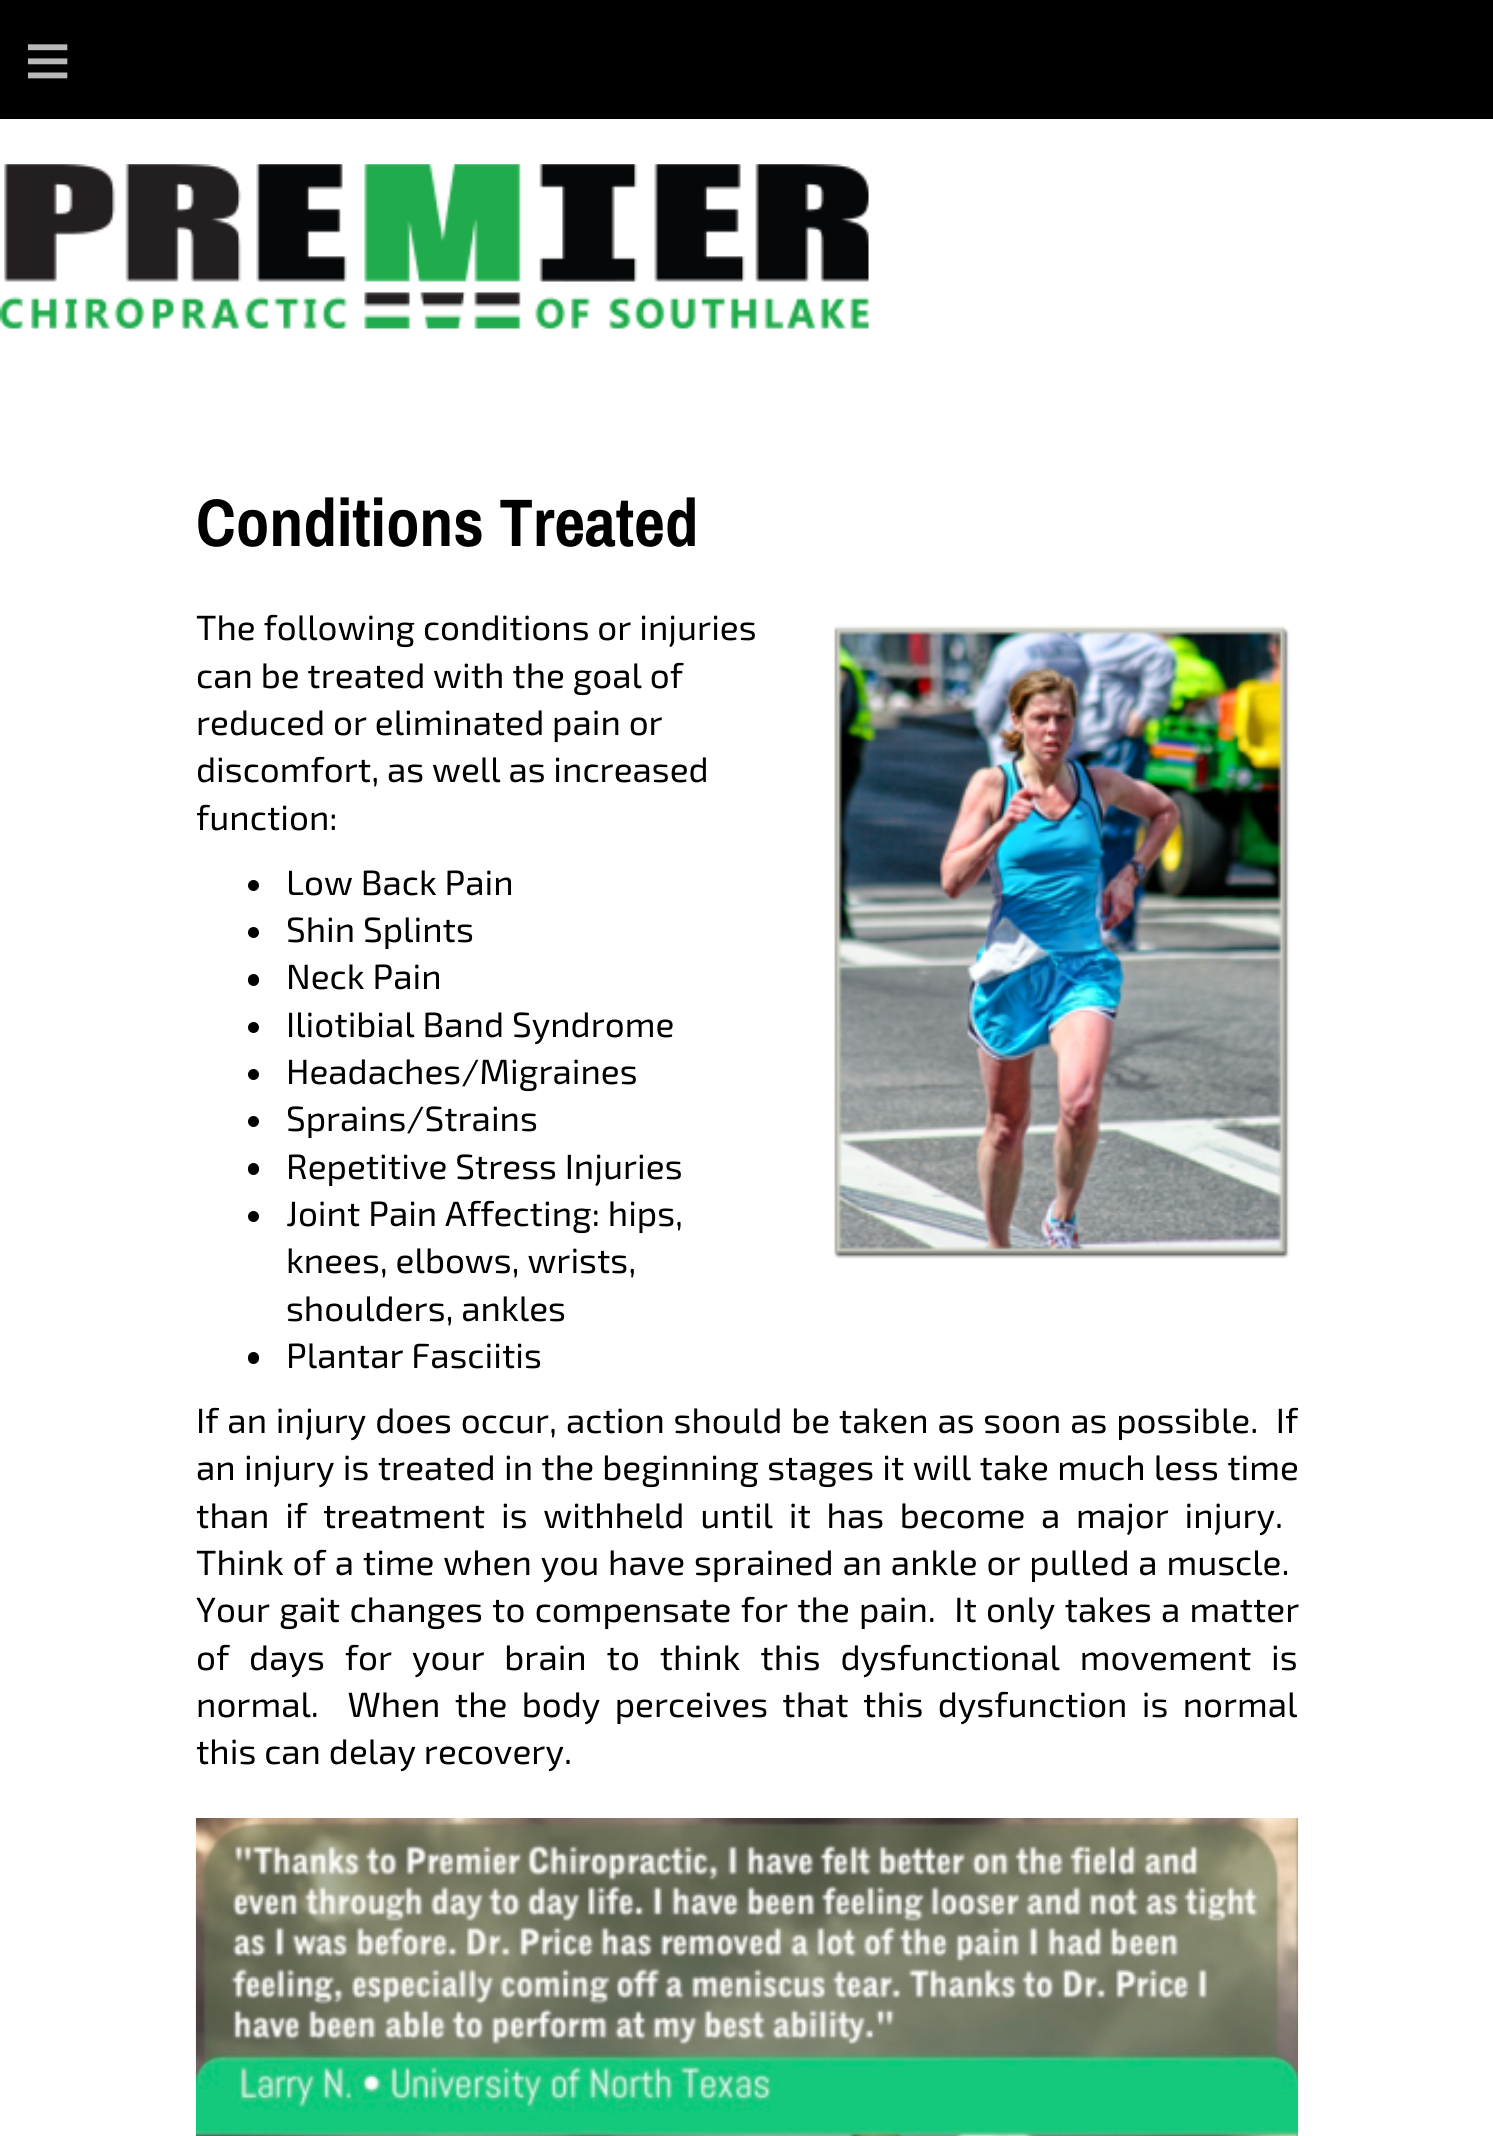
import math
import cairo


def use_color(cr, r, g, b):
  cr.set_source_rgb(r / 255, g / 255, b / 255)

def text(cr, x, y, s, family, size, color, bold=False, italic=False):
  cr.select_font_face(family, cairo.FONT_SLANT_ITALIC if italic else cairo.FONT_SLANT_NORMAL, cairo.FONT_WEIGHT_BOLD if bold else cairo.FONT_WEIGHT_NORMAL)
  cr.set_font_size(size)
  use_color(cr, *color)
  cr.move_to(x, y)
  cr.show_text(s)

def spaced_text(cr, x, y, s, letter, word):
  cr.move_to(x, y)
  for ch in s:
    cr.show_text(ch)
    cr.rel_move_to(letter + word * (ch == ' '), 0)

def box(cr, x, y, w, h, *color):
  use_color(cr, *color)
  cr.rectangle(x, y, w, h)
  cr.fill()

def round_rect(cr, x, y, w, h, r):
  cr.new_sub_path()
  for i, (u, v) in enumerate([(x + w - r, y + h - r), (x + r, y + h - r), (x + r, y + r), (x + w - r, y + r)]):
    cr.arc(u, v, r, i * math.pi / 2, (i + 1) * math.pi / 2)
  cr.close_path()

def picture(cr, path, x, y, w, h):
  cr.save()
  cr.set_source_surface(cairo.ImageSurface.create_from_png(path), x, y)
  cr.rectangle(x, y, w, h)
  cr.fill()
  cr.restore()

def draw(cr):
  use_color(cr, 255, 255, 255)
  cr.paint()
  box(cr, 0, 0, 1493, 119, 0, 0, 0)
  picture(cr, "img_01.png", 0, 164, 869, 165)
  cr.arc(253.5, 885.5, 5.5, 0, 2 * math.pi)
  cr.fill()
  cr.arc(253.5, 932.5, 5.5, 0, 2 * math.pi)
  cr.fill()
  round_rect(cr, 248, 974, 11, 12, 5.5)
  cr.fill()
  cr.arc(253.5, 1027.5, 5.5, 0, 2 * math.pi)
  cr.fill()
  cr.arc(253.5, 1074.5, 5.5, 0, 2 * math.pi)
  cr.fill()
  cr.arc(253.5, 1121.5, 5.5, 0, 2 * math.pi)
  cr.fill()
  round_rect(cr, 248, 1163, 11, 12, 5.5)
  cr.fill()
  cr.arc(253.5, 1216.5, 5.5, 0, 2 * math.pi)
  cr.fill()
  round_rect(cr, 248, 1352, 11, 12, 5.5)
  cr.fill()
  picture(cr, "img_02.png", 834, 625, 456, 634)
  picture(cr, "img_03.png", 195, 1818, 1104, 318)
  cr.select_font_face("Liberation Sans")
  cr.set_font_size(81)
  use_color(cr, 184, 184, 184)
  spaced_text(cr, 24, 88, "≡", 24, 0)
  text(cr, 196, 546, "Conditions Treated", "Archivo Narrow", 67.25, (0, 0, 0), bold=True)
  text(cr, 196, 640, "The following conditions or injuries", "Exo 2", 35.1, (0, 0, 0))
  text(cr, 196, 688, "can be treated with the goal of", "Exo 2", 35.1, (0, 0, 0))
  text(cr, 196, 735, "reduced or eliminated pain or", "Exo 2", 35.1, (0, 0, 0))
  text(cr, 196, 782, "discomfort, as well as increased", "Exo 2", 35.1, (0, 0, 0))
  text(cr, 196, 830, "function:", "Exo 2", 35.1, (0, 0, 0))
  text(cr, 286, 895, "Low Back Pain", "Exo 2", 35.1, (0, 0, 0))
  text(cr, 286, 942, "Shin Splints", "Exo 2", 35.1, (0, 0, 0))
  text(cr, 286, 989, "Neck Pain", "Exo 2", 35.1, (0, 0, 0))
  text(cr, 286, 1037, "Iliotibial Band Syndrome", "Exo 2", 35.1, (0, 0, 0))
  text(cr, 286, 1084, "Headaches/Migraines", "Exo 2", 35.1, (0, 0, 0))
  text(cr, 286, 1131, "Sprains/Strains", "Exo 2", 35.1, (0, 0, 0))
  text(cr, 286, 1179, "Repetitive Stress Injuries", "Exo 2", 35.1, (0, 0, 0))
  text(cr, 286, 1226, "Joint Pain Affecting: hips,", "Exo 2", 35.1, (0, 0, 0))
  text(cr, 286, 1273, "knees, elbows, wrists,", "Exo 2", 35.1, (0, 0, 0))
  text(cr, 286, 1321, "shoulders, ankles", "Exo 2", 35.1, (0, 0, 0))
  text(cr, 286, 1368, "Plantar Fasciitis", "Exo 2", 35.1, (0, 0, 0))
  cr.save()
  cr.rectangle(196, 603, 1102, 1170)
  cr.clip()
  spaced_text(cr, 196, 1433, "If an injury does occur, action should be taken as soon as possible.  If", 0, 1)
  cr.restore()
  spaced_text(cr, 196, 1480, "an injury is treated in the beginning stages it will take much less time", 0, 0.5)
  spaced_text(cr, 196, 1528, "than if treatment is withheld until it has become a major injury.", 0, 7.9)
  spaced_text(cr, 196, 1575, "Think of a time when you have sprained an ankle or pulled a muscle.", 0, 1)
  spaced_text(cr, 196, 1622, "Your gait changes to compensate for the pain.  It only takes a matter", 0, 1.4)
  spaced_text(cr, 196, 1670, "of days for your brain to think this dysfunctional movement is", 0, 12)
  spaced_text(cr, 196, 1717, "normal.  When the body perceives that this dysfunction is normal", 0, 6.5)
  text(cr, 196, 1764, "this can delay recovery.", "Exo 2", 35.1, (0, 0, 0))


surface = cairo.ImageSurface(cairo.FORMAT_RGB24, 1493, 2136)
cr = cairo.Context(surface)
options = cairo.FontOptions()
options.set_hint_metrics(cairo.HINT_METRICS_OFF)
options.set_hint_style(cairo.HINT_STYLE_NONE)
cr.set_font_options(options)
cr.set_miter_limit(4)
draw(cr)
surface.write_to_png("out.png")
